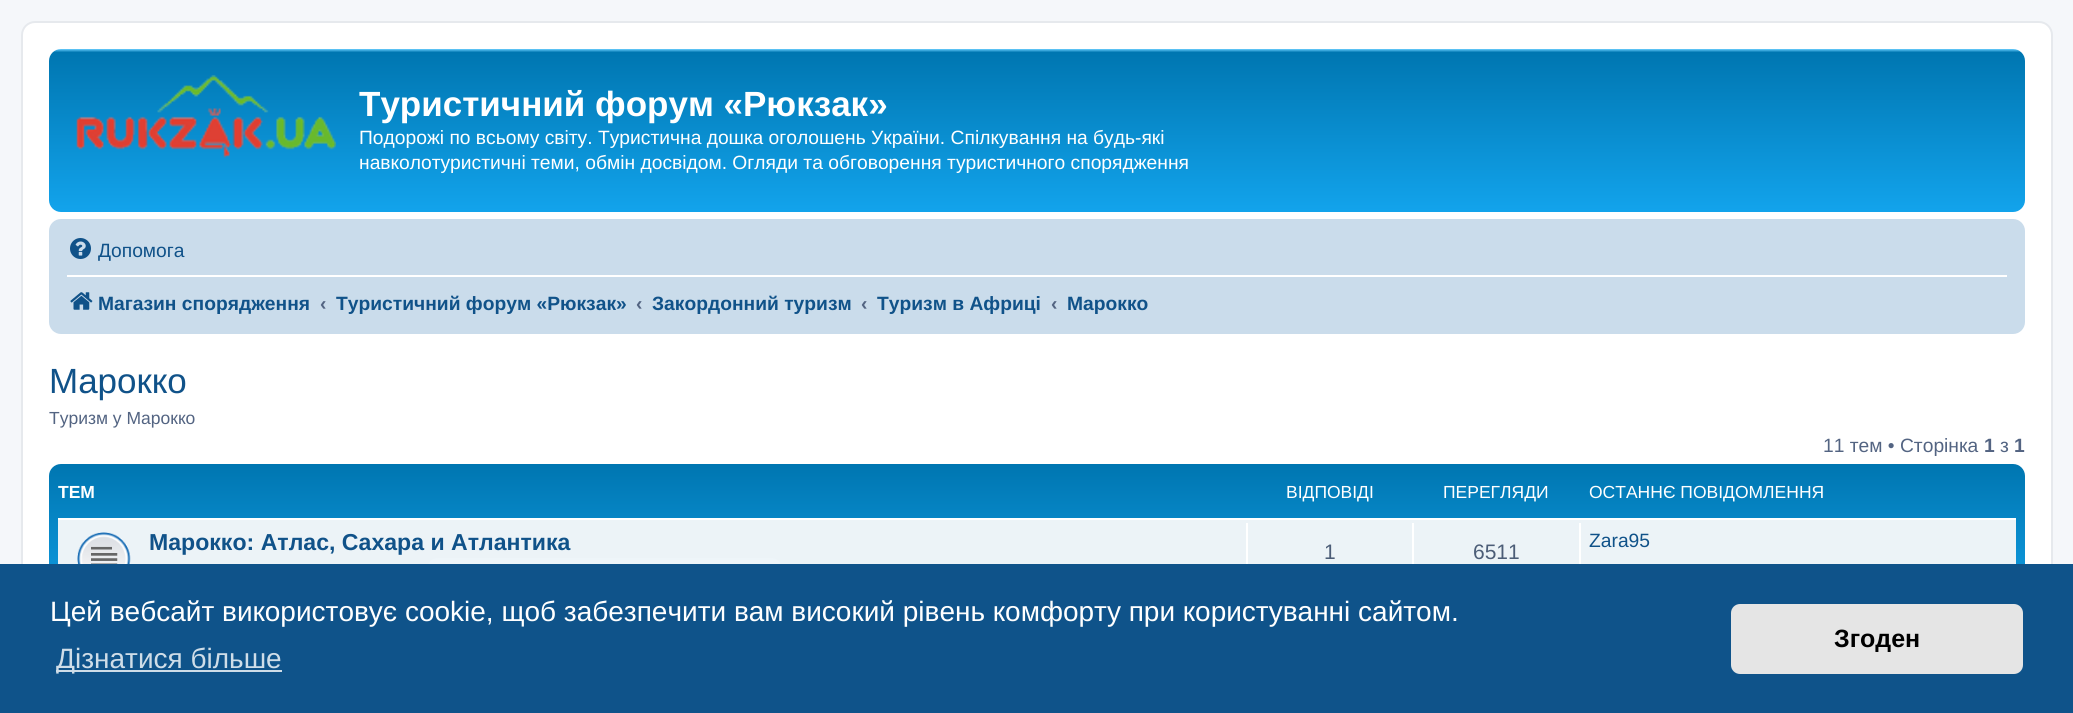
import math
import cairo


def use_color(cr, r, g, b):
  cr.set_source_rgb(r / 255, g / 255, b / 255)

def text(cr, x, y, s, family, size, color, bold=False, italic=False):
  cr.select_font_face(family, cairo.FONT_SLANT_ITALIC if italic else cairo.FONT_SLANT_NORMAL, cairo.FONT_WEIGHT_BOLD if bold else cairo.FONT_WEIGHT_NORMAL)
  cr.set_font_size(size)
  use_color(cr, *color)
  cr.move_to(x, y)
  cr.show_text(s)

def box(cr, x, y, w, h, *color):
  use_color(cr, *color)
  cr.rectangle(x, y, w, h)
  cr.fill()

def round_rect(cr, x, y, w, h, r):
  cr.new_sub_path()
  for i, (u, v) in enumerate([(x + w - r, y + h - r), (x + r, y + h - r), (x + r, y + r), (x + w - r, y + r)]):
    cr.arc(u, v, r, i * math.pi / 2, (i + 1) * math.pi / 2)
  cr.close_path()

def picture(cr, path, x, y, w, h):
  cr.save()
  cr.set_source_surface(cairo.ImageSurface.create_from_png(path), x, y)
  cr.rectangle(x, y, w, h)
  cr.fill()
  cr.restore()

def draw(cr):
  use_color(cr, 245, 247, 250)
  cr.paint()
  use_color(cr, 255, 255, 255)
  round_rect(cr, 22, 22, 2030, 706, 13)
  cr.fill_preserve()
  use_color(cr, 230, 233, 237)
  cr.stroke()
  gradient = cairo.LinearGradient(1037, 49, 1037, 212)
  gradient.add_color_stop_rgba(0, 0.416, 0.808, 1, 1)
  gradient.add_color_stop_rgba(0.02, 0, 0.463, 0.694, 1)
  gradient.add_color_stop_rgba(0.99, 0.071, 0.639, 0.922, 1)
  gradient.add_color_stop_rgba(1, 0.071, 0.639, 0.922, 1)
  cr.set_source(gradient)
  round_rect(cr, 49, 49, 1976, 163, 12)
  cr.fill()
  picture(cr, "img_01.png", 76, 75, 260, 83)
  use_color(cr, 202, 220, 235)
  round_rect(cr, 49, 219, 1976, 115, 12)
  cr.fill()
  picture(cr, "img_02.png", 70, 238, 21, 21)
  box(cr, 67, 275, 1940, 2, 255, 255, 255)
  picture(cr, "img_03.png", 70, 292, 23, 18)
  gradient = cairo.LinearGradient(1037, 464, 1037, 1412)
  gradient.add_color_stop_rgba(0, 0.416, 0.808, 1, 1)
  gradient.add_color_stop_rgba(0, 0, 0.463, 0.694, 1)
  gradient.add_color_stop_rgba(0.17, 0.071, 0.639, 0.922, 1)
  gradient.add_color_stop_rgba(1, 0.071, 0.639, 0.922, 1)
  cr.set_source(gradient)
  round_rect(cr, 49, 464, 1976, 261, 12)
  cr.fill()
  box(cr, 58, 520, 1958, 44, 236, 243, 247)
  box(cr, 58, 518, 1958, 2, 255, 255, 255)
  picture(cr, "img_04.png", 77, 532, 54, 32)
  use_color(cr, 238, 245, 249)
  round_rect(cr, 427, 558, 355, 27, 11)
  cr.fill()
  box(cr, 1579, 523, 2, 41, 255, 255, 255)
  box(cr, 1246, 523, 2, 41, 255, 255, 255)
  box(cr, 1412, 523, 2, 41, 255, 255, 255)
  box(cr, 0, 564, 2073, 149, 15, 83, 138)
  box(cr, 56, 670, 226, 2, 207, 221, 232)
  use_color(cr, 229, 229, 229)
  round_rect(cr, 1731, 604, 292, 70, 9)
  cr.fill()
  text(cr, 359, 116, "Туристичний форум «Рюкзак»", "Liberation Sans", 35, (255, 255, 255), bold=True)
  text(cr, 359, 144, "Подорожі по всьому світу. Туристична дошка оголошень України. Спілкування на будь-які", "Liberation Sans", 19.25, (255, 255, 255))
  text(cr, 359, 169, "навколотуристичні теми, обмін досвідом. Огляди та обговорення туристичного спорядження", "Liberation Sans", 19.25, (255, 255, 255))
  text(cr, 98, 257, "Допомога", "Liberation Sans", 19.25, (16, 82, 137))
  text(cr, 98, 310, "Магазин спорядження", "Liberation Sans", 19.25, (16, 82, 137), bold=True)
  text(cr, 320, 310, "‹", "Liberation Sans", 19.25, (83, 100, 130), bold=True)
  text(cr, 336, 310, "Туристичний форум «Рюкзак»", "Liberation Sans", 19.25, (16, 82, 137), bold=True)
  text(cr, 636, 310, "‹", "Liberation Sans", 19.25, (83, 100, 130), bold=True)
  text(cr, 652, 310, "Закордонний туризм", "Liberation Sans", 19.25, (16, 82, 137), bold=True)
  text(cr, 861, 310, "‹", "Liberation Sans", 19.25, (83, 100, 130), bold=True)
  text(cr, 877, 310, "Туризм в Африці", "Liberation Sans", 19.25, (16, 82, 137), bold=True)
  text(cr, 1051, 310, "‹", "Liberation Sans", 19.25, (83, 100, 130), bold=True)
  text(cr, 1067, 310, "Марокко", "Liberation Sans", 19.25, (16, 82, 137), bold=True)
  text(cr, 49, 393, "Марокко", "Liberation Sans", 35, (16, 82, 137))
  text(cr, 49, 424, "Туризм у Марокко", "Liberation Sans", 17.5, (83, 100, 130))
  text(cr, 1823, 452, "11 тем • Сторінка", "Liberation Sans", 19.25, (83, 100, 130))
  text(cr, 1984, 452, "1", "Liberation Sans", 19.25, (83, 100, 130), bold=True)
  text(cr, 2000, 452, "з", "Liberation Sans", 19.25, (83, 100, 130))
  text(cr, 2014, 452, "1", "Liberation Sans", 19.25, (83, 100, 130), bold=True)
  text(cr, 58, 498, "ТЕМ", "Liberation Sans", 17.5, (255, 255, 255), bold=True)
  text(cr, 1286, 498, "ВІДПОВІДІ", "Liberation Sans", 17.5, (255, 255, 255))
  text(cr, 1443, 498, "ПЕРЕГЛЯДИ", "Liberation Sans", 17.5, (255, 255, 255))
  text(cr, 1589, 498, "ОСТАННЄ ПОВІДОМЛЕННЯ", "Liberation Sans", 17.5, (255, 255, 255))
  text(cr, 149, 550, "Марокко: Атлас, Сахара и Атлантика", "Liberation Sans", 23.1, (16, 82, 137), bold=True)
  text(cr, 1589, 547, "Zara95", "Liberation Sans", 19.25, (16, 82, 137))
  text(cr, 1324, 559, "1", "Liberation Sans", 21, (76, 93, 119))
  text(cr, 1473, 559, "6511", "Liberation Sans", 21, (76, 93, 119))
  text(cr, 50, 621, "Цей вебсайт використовує cookie, щоб забезпечити вам високий рівень комфорту при користуванні сайтом.", "Liberation Sans", 28, (255, 255, 255))
  text(cr, 56, 668, "Дізнатися більше", "Liberation Sans", 28, (207, 221, 232))
  text(cr, 1834, 647, "Згоден", "Liberation Sans", 25, (0, 0, 0), bold=True)


surface = cairo.ImageSurface(cairo.FORMAT_RGB24, 2073, 713)
cr = cairo.Context(surface)
options = cairo.FontOptions()
options.set_hint_metrics(cairo.HINT_METRICS_OFF)
options.set_hint_style(cairo.HINT_STYLE_NONE)
cr.set_font_options(options)
cr.set_miter_limit(4)
draw(cr)
surface.write_to_png("out.png")
